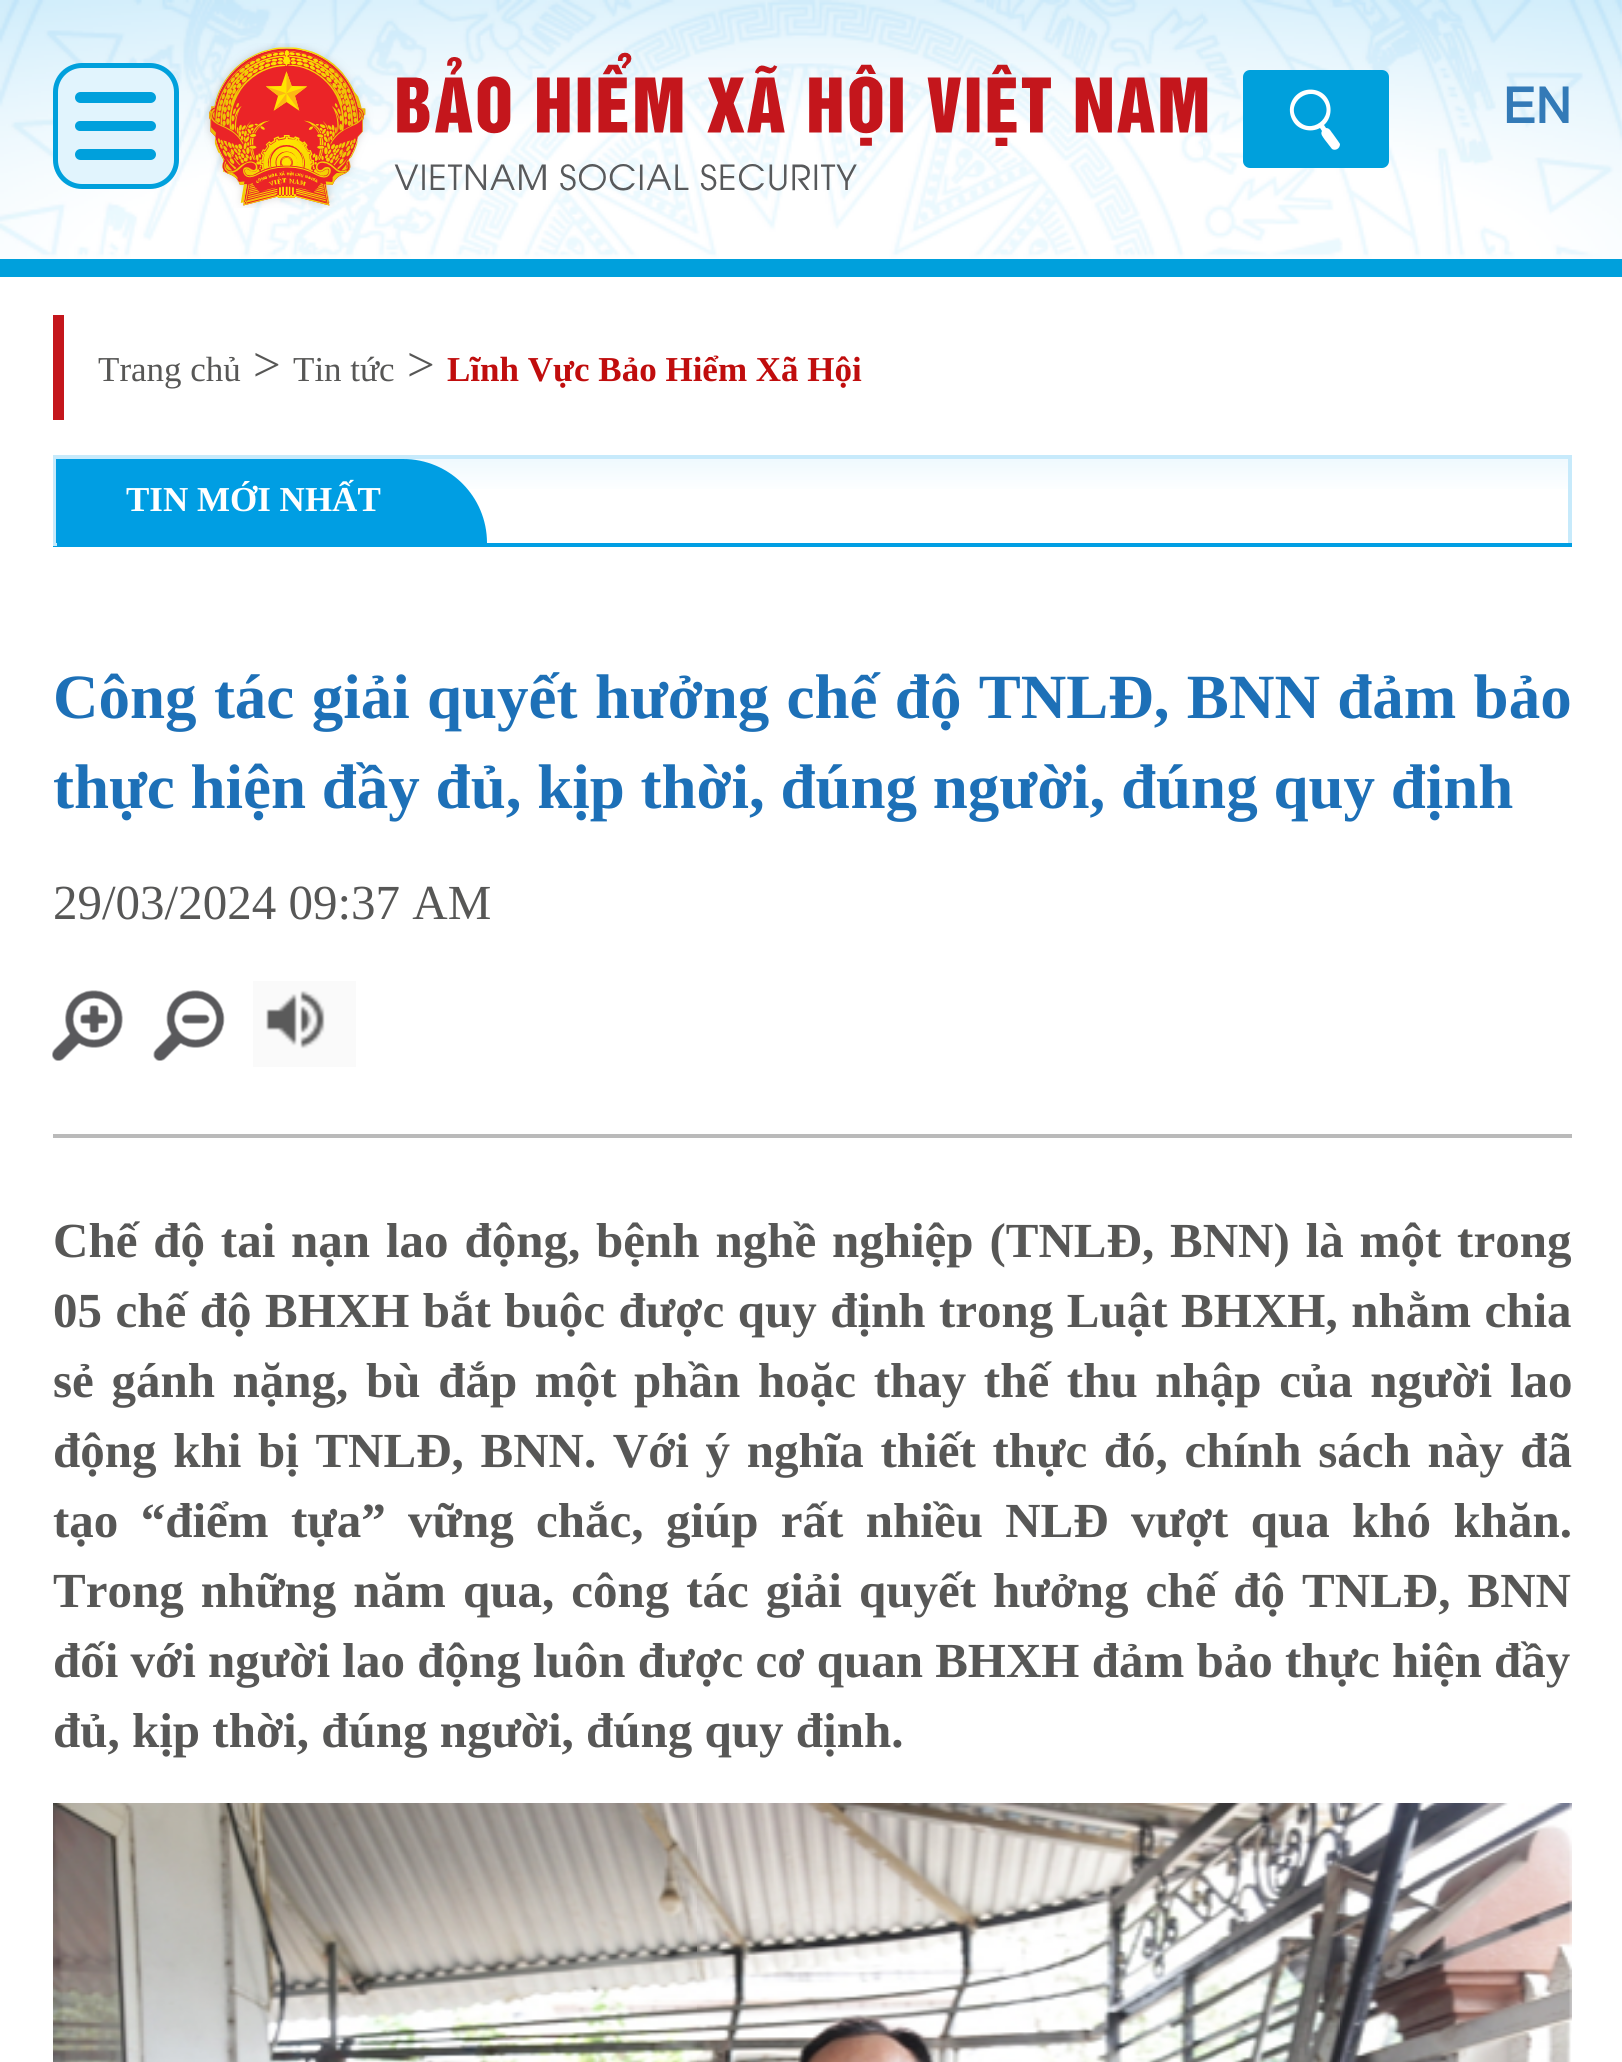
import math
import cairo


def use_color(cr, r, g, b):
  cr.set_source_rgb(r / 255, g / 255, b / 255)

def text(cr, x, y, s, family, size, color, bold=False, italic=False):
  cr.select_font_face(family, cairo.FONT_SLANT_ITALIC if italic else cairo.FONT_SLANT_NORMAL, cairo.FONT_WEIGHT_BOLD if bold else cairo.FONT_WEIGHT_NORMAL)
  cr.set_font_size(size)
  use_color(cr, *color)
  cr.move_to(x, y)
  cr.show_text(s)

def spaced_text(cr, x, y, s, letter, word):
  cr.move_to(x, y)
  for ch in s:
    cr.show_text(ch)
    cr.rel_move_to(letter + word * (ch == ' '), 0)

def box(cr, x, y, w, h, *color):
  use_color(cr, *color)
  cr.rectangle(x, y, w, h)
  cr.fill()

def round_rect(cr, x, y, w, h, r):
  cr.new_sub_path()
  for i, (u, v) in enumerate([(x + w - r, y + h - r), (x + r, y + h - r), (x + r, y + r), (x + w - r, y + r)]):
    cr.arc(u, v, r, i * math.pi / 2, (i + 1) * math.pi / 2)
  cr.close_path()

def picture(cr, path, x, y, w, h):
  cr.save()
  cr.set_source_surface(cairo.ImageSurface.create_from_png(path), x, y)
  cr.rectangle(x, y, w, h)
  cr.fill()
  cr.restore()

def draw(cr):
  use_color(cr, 255, 255, 255)
  cr.paint()
  picture(cr, "img_01.png", 0, 0, 1622, 259)
  box(cr, 0, 259, 1622, 18, 0, 160, 220)
  use_color(cr, 225, 244, 253)
  round_rect(cr, 55.5, 65.5, 121, 121, 26.5)
  cr.fill_preserve()
  use_color(cr, 0, 160, 220)
  cr.set_line_width(5)
  cr.stroke()
  round_rect(cr, 75, 92, 81, 11, 5.5)
  cr.fill()
  round_rect(cr, 75, 121, 81, 10, 5)
  cr.fill()
  round_rect(cr, 75, 149, 81, 11, 5.5)
  cr.fill()
  picture(cr, "img_02.png", 204, 43, 1004, 165)
  round_rect(cr, 1243, 70, 146, 98, 7)
  cr.fill()
  use_color(cr, 255, 255, 255)
  cr.new_path()
  cr.move_to(1327, 98)
  cr.curve_to(1321, 89, 1308, 87, 1299, 93)
  cr.curve_to(1290, 99, 1287, 111, 1293, 121)
  cr.curve_to(1298, 130, 1311, 133, 1320, 128)
  cr.line_to(1322, 131)
  cr.curve_to(1320, 134, 1323, 137, 1325, 140)
  cr.line_to(1332, 149)
  cr.curve_to(1335, 151, 1340, 149, 1340, 144)
  cr.line_to(1338, 141)
  cr.line_to(1333, 134)
  cr.curve_to(1331, 132, 1330, 128, 1326, 128)
  cr.line_to(1324, 125)
  cr.curve_to(1331, 119, 1333, 107, 1327, 98)
  cr.close_path()
  cr.move_to(1297, 119)
  cr.curve_to(1285, 103, 1310, 84, 1323, 100)
  cr.curve_to(1336, 117, 1310, 137, 1297, 119)
  cr.close_path()
  cr.fill()
  box(cr, 53, 315, 11, 105, 196, 22, 28)
  gradient = cairo.LinearGradient(812, 458, 812, 543)
  gradient.add_color_stop_rgba(0, 0.937, 0.976, 0.996, 1)
  gradient.add_color_stop_rgba(0.43, 1, 1, 1, 1)
  cr.set_source(gradient)
  cr.rectangle(404, 459, 1164, 30)
  cr.fill()
  box(cr, 53, 455, 1519, 4, 199, 234, 251)
  box(cr, 1568, 455, 4, 91, 199, 234, 251)
  box(cr, 53, 543, 1519, 4, 0, 158, 227)
  box(cr, 53, 455, 4, 91, 199, 234, 251)
  use_color(cr, 0, 158, 227)
  cr.new_path()
  cr.move_to(56, 459)
  cr.line_to(403, 459)
  cr.curve_to(449.5, 459, 487, 496.5, 487, 543)
  cr.line_to(56, 543)
  cr.close_path()
  cr.fill()
  box(cr, 53, 1134, 1519, 4, 186, 186, 186)
  picture(cr, "img_03.png", 52, 990, 71, 71)
  picture(cr, "img_04.png", 153, 990, 72, 71)
  picture(cr, "img_05.png", 253, 981, 103, 86)
  picture(cr, "img_06.png", 53, 1803, 1519, 259)
  text(cr, 1503, 123, "EN", "Arial", 49, (51, 122, 183), bold=True)
  text(cr, 98, 381, "Trang chủ", "Liberation Serif", 35, (87, 87, 86))
  text(cr, 253, 381, ">", "Liberation Serif", 49, (87, 87, 86))
  text(cr, 293, 381, "Tin tức", "Liberation Serif", 35, (87, 87, 86))
  text(cr, 407, 381, ">", "Liberation Serif", 49, (87, 87, 86))
  text(cr, 447, 381, "Lĩnh Vực Bảo Hiểm Xã Hội", "Liberation Serif", 35, (192, 13, 13), bold=True)
  text(cr, 126, 511, "TIN MỚI NHẤT", "Liberation Serif", 35, (255, 255, 255), bold=True)
  cr.set_font_size(63)
  use_color(cr, 29, 112, 183)
  spaced_text(cr, 53, 718, "Công tác giải quyết hưởng chế độ TNLĐ, BNN đảm bảo", 0, 1.6)
  text(cr, 53, 808, "thực hiện đầy đủ, kịp thời, đúng người, đúng quy định", "Liberation Serif", 63, (29, 112, 183), bold=True)
  text(cr, 53, 919, "29/03/2024 09:37 AM", "Liberation Serif", 49, (87, 87, 86))
  cr.select_font_face("Liberation Serif", cairo.FONT_SLANT_NORMAL, cairo.FONT_WEIGHT_BOLD)
  spaced_text(cr, 53, 1257, "Chế độ tai nạn lao động, bệnh nghề nghiệp (TNLĐ, BNN) là một trong", 0, 3.6)
  spaced_text(cr, 53, 1327, "05 chế độ BHXH bắt buộc được quy định trong Luật BHXH, nhằm chia", 0, 1.25)
  spaced_text(cr, 53, 1397, "sẻ gánh nặng, bù đắp một phần hoặc thay thế thu nhập của người lao", 0, 5.4)
  spaced_text(cr, 53, 1467, "động khi bị TNLĐ, BNN. Với ý nghĩa thiết thực đó, chính sách này đã", 0, 4.4)
  spaced_text(cr, 53, 1537, "tạo “điểm tựa” vững chắc, giúp rất nhiều NLĐ vượt qua khó khăn.", 0, 10.1)
  spaced_text(cr, 53, 1607, "Trong những năm qua, công tác giải quyết hưởng chế độ TNLĐ, BNN", 0, 4.75)
  text(cr, 53, 1677, "đối với người lao động luôn được cơ quan BHXH đảm bảo thực hiện đầy", "Liberation Serif", 49, (87, 87, 86), bold=True)
  text(cr, 53, 1747, "đủ, kịp thời, đúng người, đúng quy định.", "Liberation Serif", 49, (87, 87, 86), bold=True)


surface = cairo.ImageSurface(cairo.FORMAT_RGB24, 1622, 2062)
cr = cairo.Context(surface)
options = cairo.FontOptions()
options.set_hint_metrics(cairo.HINT_METRICS_OFF)
options.set_hint_style(cairo.HINT_STYLE_NONE)
cr.set_font_options(options)
cr.set_miter_limit(4)
draw(cr)
surface.write_to_png("out.png")
